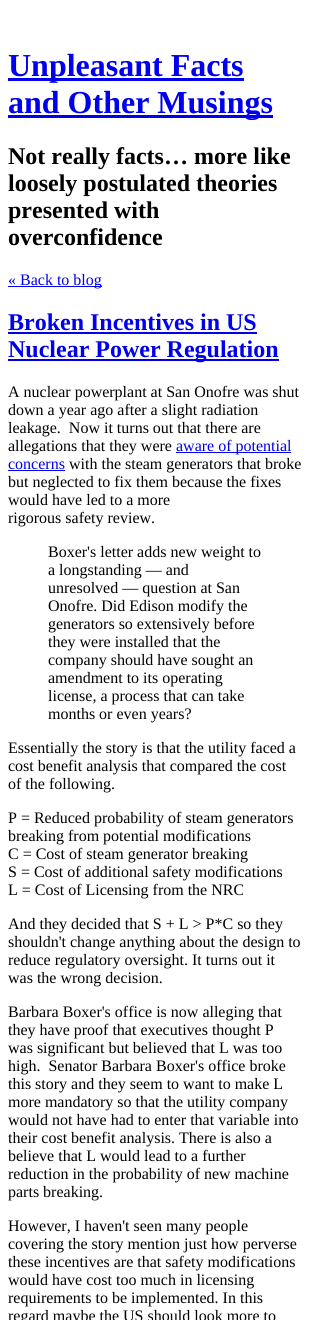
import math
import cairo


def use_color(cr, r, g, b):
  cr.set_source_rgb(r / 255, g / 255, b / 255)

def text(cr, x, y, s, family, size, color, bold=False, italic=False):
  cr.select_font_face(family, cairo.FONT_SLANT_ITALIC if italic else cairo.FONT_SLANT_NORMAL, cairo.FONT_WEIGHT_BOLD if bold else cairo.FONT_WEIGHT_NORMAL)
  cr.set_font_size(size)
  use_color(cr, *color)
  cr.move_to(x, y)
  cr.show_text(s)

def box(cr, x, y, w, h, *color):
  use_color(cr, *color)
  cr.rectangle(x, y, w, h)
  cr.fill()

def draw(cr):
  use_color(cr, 255, 255, 255)
  cr.paint()
  box(cr, 8, 78, 236, 3, 0, 0, 238)
  box(cr, 8, 115, 265, 3, 0, 0, 238)
  box(cr, 8, 286, 94, 1, 0, 0, 238)
  box(cr, 8, 332, 249, 2, 0, 0, 238)
  box(cr, 8, 359, 271, 2, 0, 0, 238)
  box(cr, 176, 452, 115, 1, 0, 0, 238)
  box(cr, 8, 470, 57, 1, 0, 0, 238)
  text(cr, 8, 76, "Unpleasant Facts", "Liberation Serif", 32, (0, 0, 238), bold=True)
  text(cr, 8, 113, "and Other Musings", "Liberation Serif", 32, (0, 0, 238), bold=True)
  text(cr, 8, 164, "Not really facts… more like", "Liberation Serif", 24, (0, 0, 0), bold=True)
  text(cr, 8, 191, "loosely postulated theories", "Liberation Serif", 24, (0, 0, 0), bold=True)
  text(cr, 8, 218, "presented with", "Liberation Serif", 24, (0, 0, 0), bold=True)
  text(cr, 8, 245, "overconfidence", "Liberation Serif", 24, (0, 0, 0), bold=True)
  text(cr, 8, 285, "« Back to blog", "Liberation Serif", 16, (0, 0, 238))
  text(cr, 8, 330, "Broken Incentives in US", "Liberation Serif", 24, (0, 0, 238), bold=True)
  text(cr, 8, 357, "Nuclear Power Regulation", "Liberation Serif", 24, (0, 0, 238), bold=True)
  text(cr, 8, 397, "A nuclear powerplant at San Onofre was shut", "Liberation Serif", 16, (0, 0, 0))
  text(cr, 8, 415, "down a year ago after a slight radiation", "Liberation Serif", 16, (0, 0, 0))
  text(cr, 8, 433, "leakage.  Now it turns out that there are", "Liberation Serif", 16, (0, 0, 0))
  text(cr, 8, 451, "allegations that they were", "Liberation Serif", 16, (0, 0, 0))
  text(cr, 176, 451, "aware of potential", "Liberation Serif", 16, (0, 0, 238))
  text(cr, 8, 469, "concerns", "Liberation Serif", 16, (0, 0, 238))
  text(cr, 69, 469, "with the steam generators that broke", "Liberation Serif", 16, (0, 0, 0))
  text(cr, 8, 487, "but neglected to fix them because the fixes", "Liberation Serif", 16, (0, 0, 0))
  text(cr, 8, 505, "would have led to a more", "Liberation Serif", 16, (0, 0, 0))
  text(cr, 8, 523, "rigorous safety review.", "Liberation Serif", 16, (0, 0, 0))
  text(cr, 48, 557, "Boxer's letter adds new weight to", "Liberation Serif", 16, (0, 0, 0))
  text(cr, 48, 575, "a longstanding — and", "Liberation Serif", 16, (0, 0, 0))
  text(cr, 48, 593, "unresolved — question at San", "Liberation Serif", 16, (0, 0, 0))
  text(cr, 48, 611, "Onofre. Did Edison modify the", "Liberation Serif", 16, (0, 0, 0))
  text(cr, 48, 629, "generators so extensively before", "Liberation Serif", 16, (0, 0, 0))
  text(cr, 48, 647, "they were installed that the", "Liberation Serif", 16, (0, 0, 0))
  text(cr, 48, 665, "company should have sought an", "Liberation Serif", 16, (0, 0, 0))
  text(cr, 48, 683, "amendment to its operating", "Liberation Serif", 16, (0, 0, 0))
  text(cr, 48, 701, "license, a process that can take", "Liberation Serif", 16, (0, 0, 0))
  text(cr, 48, 719, "months or even years?", "Liberation Serif", 16, (0, 0, 0))
  text(cr, 8, 753, "Essentially the story is that the utility faced a", "Liberation Serif", 16, (0, 0, 0))
  text(cr, 8, 771, "cost benefit analysis that compared the cost", "Liberation Serif", 16, (0, 0, 0))
  text(cr, 8, 789, "of the following.", "Liberation Serif", 16, (0, 0, 0))
  text(cr, 8, 823, "P = Reduced probability of steam generators", "Liberation Serif", 16, (0, 0, 0))
  text(cr, 8, 841, "breaking from potential modifications", "Liberation Serif", 16, (0, 0, 0))
  text(cr, 8, 859, "C = Cost of steam generator breaking", "Liberation Serif", 16, (0, 0, 0))
  text(cr, 8, 877, "S = Cost of additional safety modifications", "Liberation Serif", 16, (0, 0, 0))
  text(cr, 8, 895, "L = Cost of Licensing from the NRC", "Liberation Serif", 16, (0, 0, 0))
  text(cr, 8, 929, "And they decided that S + L > P*C so they", "Liberation Serif", 16, (0, 0, 0))
  text(cr, 8, 947, "shouldn't change anything about the design to", "Liberation Serif", 16, (0, 0, 0))
  text(cr, 8, 965, "reduce regulatory oversight. It turns out it", "Liberation Serif", 16, (0, 0, 0))
  text(cr, 8, 983, "was the wrong decision.", "Liberation Serif", 16, (0, 0, 0))
  text(cr, 8, 1017, "Barbara Boxer's office is now alleging that", "Liberation Serif", 16, (0, 0, 0))
  text(cr, 8, 1035, "they have proof that executives thought P", "Liberation Serif", 16, (0, 0, 0))
  text(cr, 8, 1053, "was significant but believed that L was too", "Liberation Serif", 16, (0, 0, 0))
  text(cr, 8, 1071, "high.  Senator Barbara Boxer's office broke", "Liberation Serif", 16, (0, 0, 0))
  text(cr, 8, 1089, "this story and they seem to want to make L", "Liberation Serif", 16, (0, 0, 0))
  text(cr, 8, 1107, "more mandatory so that the utility company", "Liberation Serif", 16, (0, 0, 0))
  text(cr, 8, 1125, "would not have had to enter that variable into", "Liberation Serif", 16, (0, 0, 0))
  text(cr, 8, 1143, "their cost benefit analysis. There is also a", "Liberation Serif", 16, (0, 0, 0))
  text(cr, 8, 1161, "believe that L would lead to a further", "Liberation Serif", 16, (0, 0, 0))
  text(cr, 8, 1179, "reduction in the probability of new machine", "Liberation Serif", 16, (0, 0, 0))
  text(cr, 8, 1197, "parts breaking.", "Liberation Serif", 16, (0, 0, 0))
  text(cr, 8, 1231, "However, I haven't seen many people", "Liberation Serif", 16, (0, 0, 0))
  text(cr, 8, 1249, "covering the story mention just how perverse", "Liberation Serif", 16, (0, 0, 0))
  text(cr, 8, 1267, "these incentives are that safety modifications", "Liberation Serif", 16, (0, 0, 0))
  text(cr, 8, 1285, "would have cost too much in licensing", "Liberation Serif", 16, (0, 0, 0))
  text(cr, 8, 1303, "requirements to be implemented. In this", "Liberation Serif", 16, (0, 0, 0))
  text(cr, 8, 1321, "regard maybe the US should look more to", "Liberation Serif", 16, (0, 0, 0))


surface = cairo.ImageSurface(cairo.FORMAT_RGB24, 310, 1320)
cr = cairo.Context(surface)
options = cairo.FontOptions()
options.set_hint_metrics(cairo.HINT_METRICS_OFF)
options.set_hint_style(cairo.HINT_STYLE_NONE)
cr.set_font_options(options)
cr.set_miter_limit(4)
draw(cr)
surface.write_to_png("out.png")
